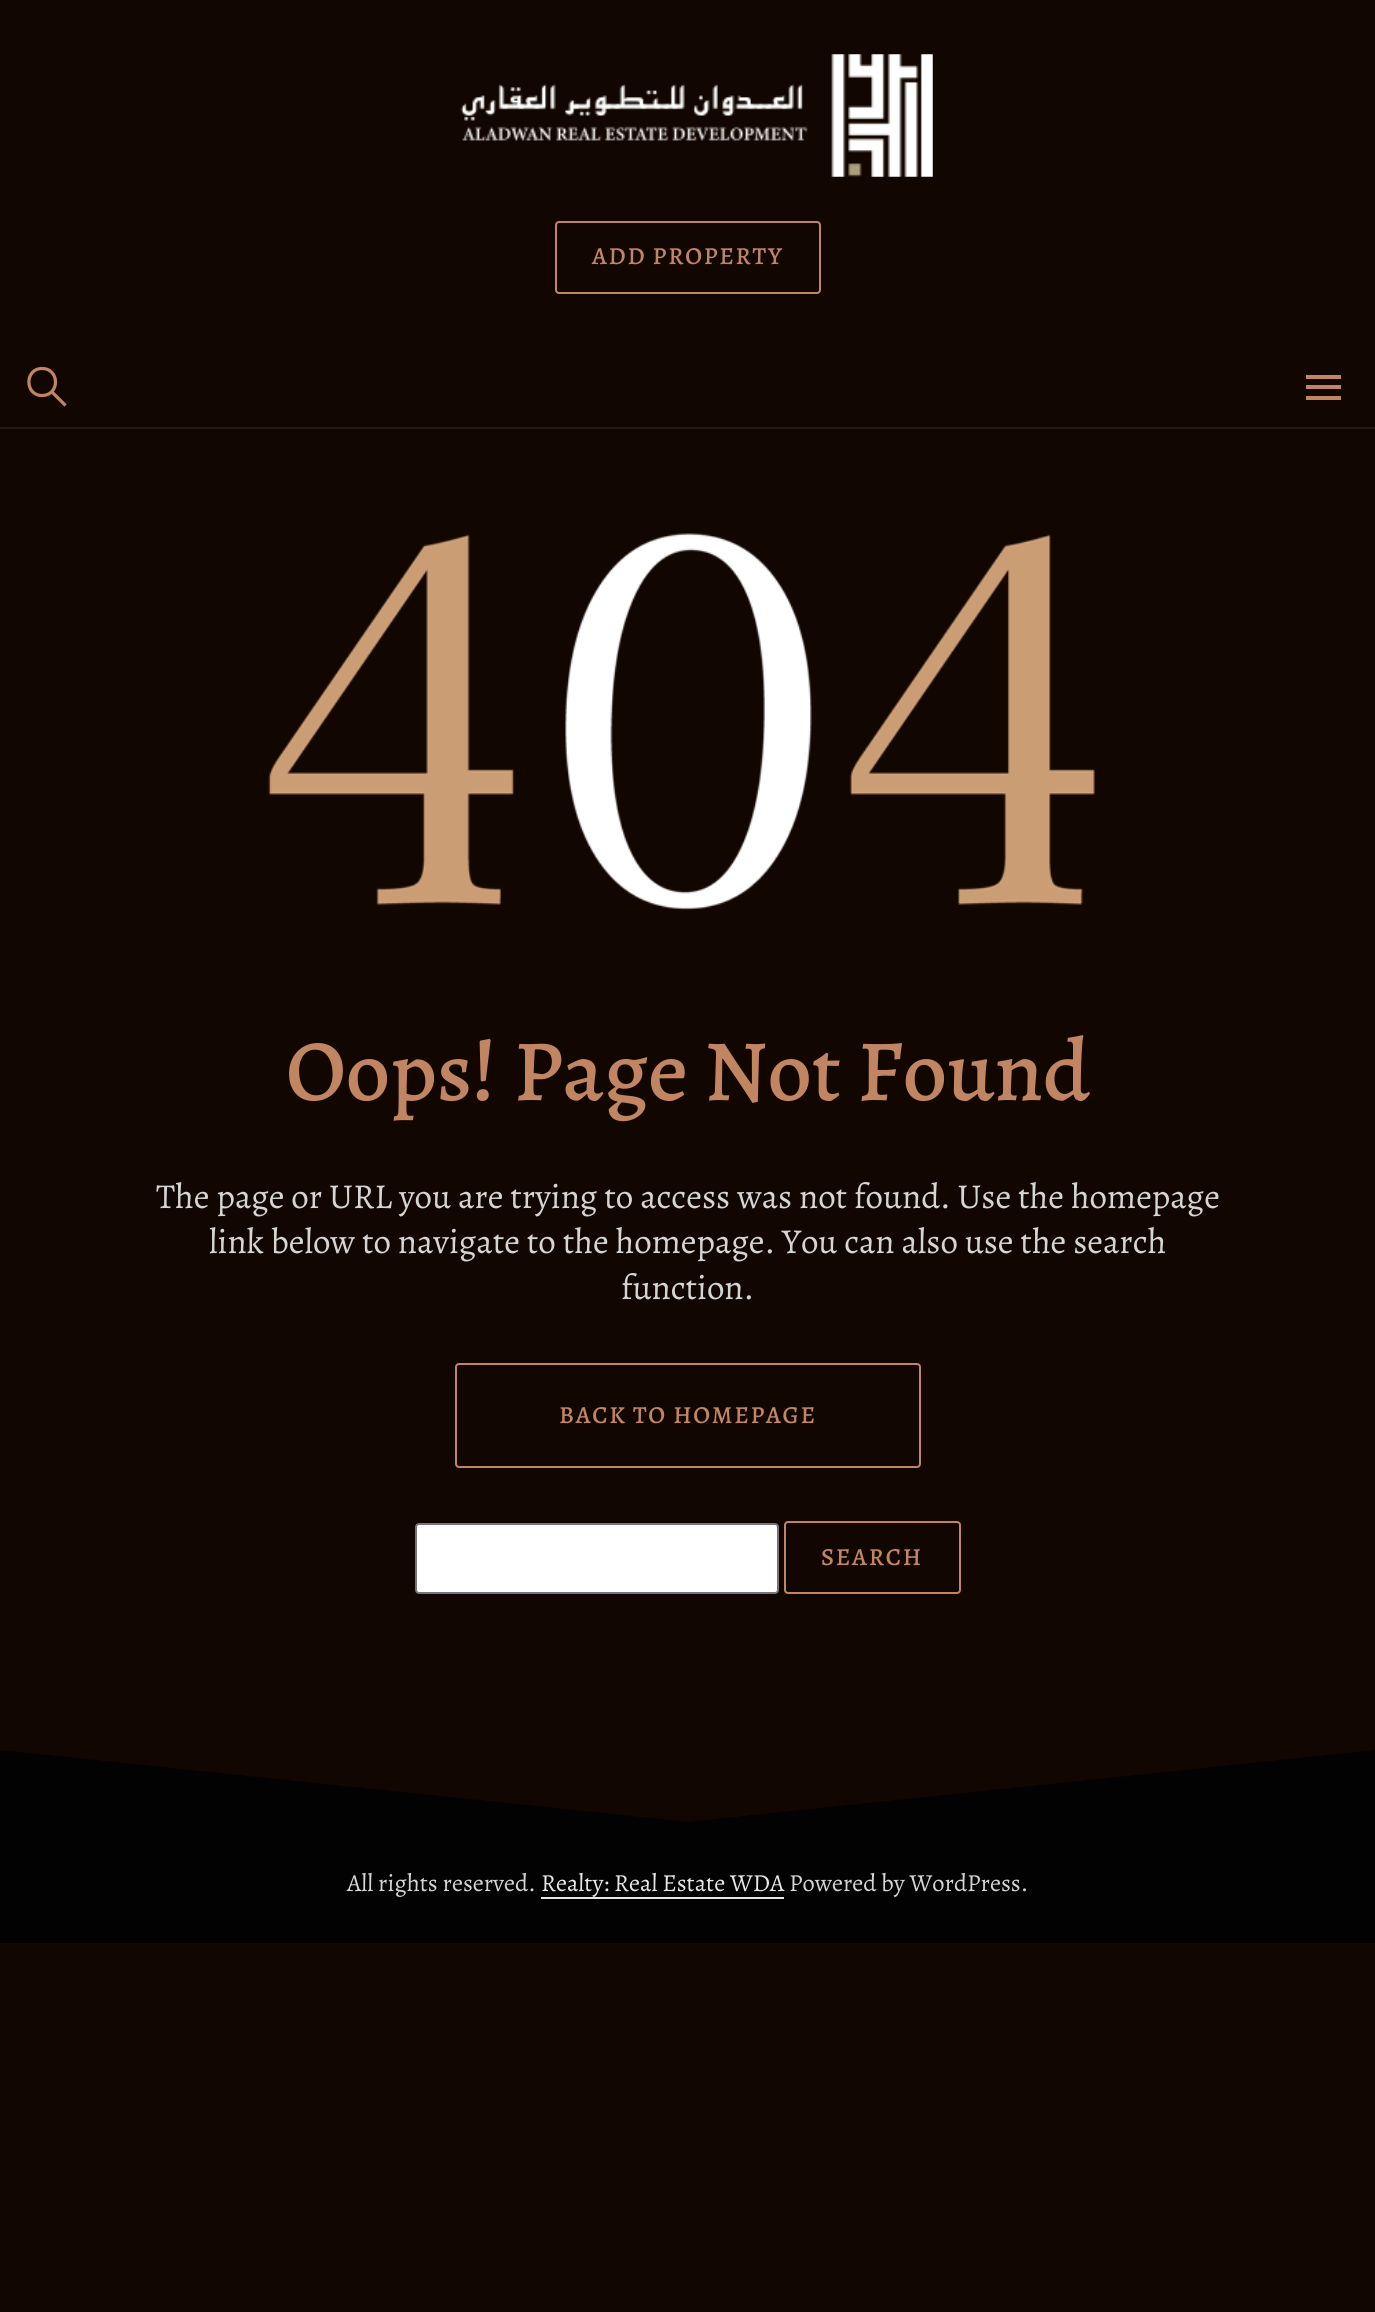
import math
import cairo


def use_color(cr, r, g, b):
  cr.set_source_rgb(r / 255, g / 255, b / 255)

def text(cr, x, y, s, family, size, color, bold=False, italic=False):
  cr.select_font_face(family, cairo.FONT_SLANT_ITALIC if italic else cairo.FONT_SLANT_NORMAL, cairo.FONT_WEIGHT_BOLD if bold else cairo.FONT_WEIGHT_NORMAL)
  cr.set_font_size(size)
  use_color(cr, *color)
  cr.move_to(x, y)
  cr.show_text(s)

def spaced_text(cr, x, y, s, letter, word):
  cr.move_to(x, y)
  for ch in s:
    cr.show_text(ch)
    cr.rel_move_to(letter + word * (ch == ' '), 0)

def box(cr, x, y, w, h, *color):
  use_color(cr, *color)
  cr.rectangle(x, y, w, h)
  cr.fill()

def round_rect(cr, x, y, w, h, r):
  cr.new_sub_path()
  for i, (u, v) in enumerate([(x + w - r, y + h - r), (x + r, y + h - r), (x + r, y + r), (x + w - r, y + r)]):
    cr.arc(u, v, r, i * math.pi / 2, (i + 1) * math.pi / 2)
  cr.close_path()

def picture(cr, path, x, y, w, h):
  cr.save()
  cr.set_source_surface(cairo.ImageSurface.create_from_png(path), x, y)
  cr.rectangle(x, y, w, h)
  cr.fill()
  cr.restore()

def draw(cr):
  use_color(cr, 18, 7, 0)
  cr.paint()
  box(cr, 0, 427, 1375, 2, 40, 26, 15)
  picture(cr, "img_01.png", 460, 54, 473, 123)
  round_rect(cr, 556, 222, 264, 71, 3)
  use_color(cr, 194, 133, 98)
  cr.stroke()
  cr.new_path()
  cr.move_to(42, 395.5)
  cr.curve_to(60, 395.5, 60, 368.5, 42, 368.5)
  cr.curve_to(24.5, 368.5, 24.5, 395.5, 42, 395.5)
  cr.close_path()
  cr.move_to(65.5, 405.5)
  cr.line_to(51.5, 391.5)
  cr.set_line_width(3.2)
  cr.stroke()
  box(cr, 1306, 375, 35, 4, 194, 133, 98)
  box(cr, 1306, 385, 35, 4, 194, 133, 98)
  box(cr, 1306, 396, 35, 4, 194, 133, 98)
  picture(cr, "img_02.png", 268, 533, 827, 377)
  round_rect(cr, 456, 1364, 464, 103, 3)
  cr.set_line_width(2)
  cr.stroke()
  use_color(cr, 255, 255, 255)
  round_rect(cr, 416, 1524, 362, 69, 3)
  cr.fill_preserve()
  use_color(cr, 118, 118, 118)
  cr.stroke()
  round_rect(cr, 785, 1522, 175, 71, 3)
  use_color(cr, 194, 133, 98)
  cr.stroke()
  box(cr, 0, 1822, 1375, 121, 2, 2, 2)
  picture(cr, "img_03.png", 0, 1750, 1375, 72)
  box(cr, 541, 1897, 243, 2, 231, 231, 231)
  cr.select_font_face("Alegreya Medium")
  cr.set_font_size(24.5)
  use_color(cr, 194, 133, 98)
  spaced_text(cr, 592, 264, "ADD PROPERTY", 1.75, 0)
  text(cr, 286, 1100, "Oops! Page Not Found", "Alegreya Medium", 87.5, (194, 133, 98))
  text(cr, 156, 1208, "The page or URL you are trying to access was not found. Use the homepage", "Alegreya", 35, (213, 213, 213))
  text(cr, 209, 1253, "link below to navigate to the homepage. You can also use the search", "Alegreya", 35, (213, 213, 213))
  text(cr, 621, 1299, "function.", "Alegreya", 35, (213, 213, 213))
  cr.select_font_face("Alegreya Medium")
  cr.set_font_size(24.5)
  use_color(cr, 194, 133, 98)
  spaced_text(cr, 559, 1423, "BACK TO HOMEPAGE", 1.75, 0)
  spaced_text(cr, 821, 1565, "SEARCH", 1.75, 0)
  text(cr, 347, 1891, "All rights reserved.", "Alegreya", 24.5, (213, 213, 213))
  text(cr, 541, 1891, "Realty: Real Estate WDA", "Alegreya", 24.5, (231, 231, 231))
  text(cr, 789, 1891, "Powered by WordPress.", "Alegreya", 24.5, (213, 213, 213))


surface = cairo.ImageSurface(cairo.FORMAT_RGB24, 1375, 2312)
cr = cairo.Context(surface)
options = cairo.FontOptions()
options.set_hint_metrics(cairo.HINT_METRICS_OFF)
options.set_hint_style(cairo.HINT_STYLE_NONE)
cr.set_font_options(options)
cr.set_miter_limit(4)
draw(cr)
surface.write_to_png("out.png")
